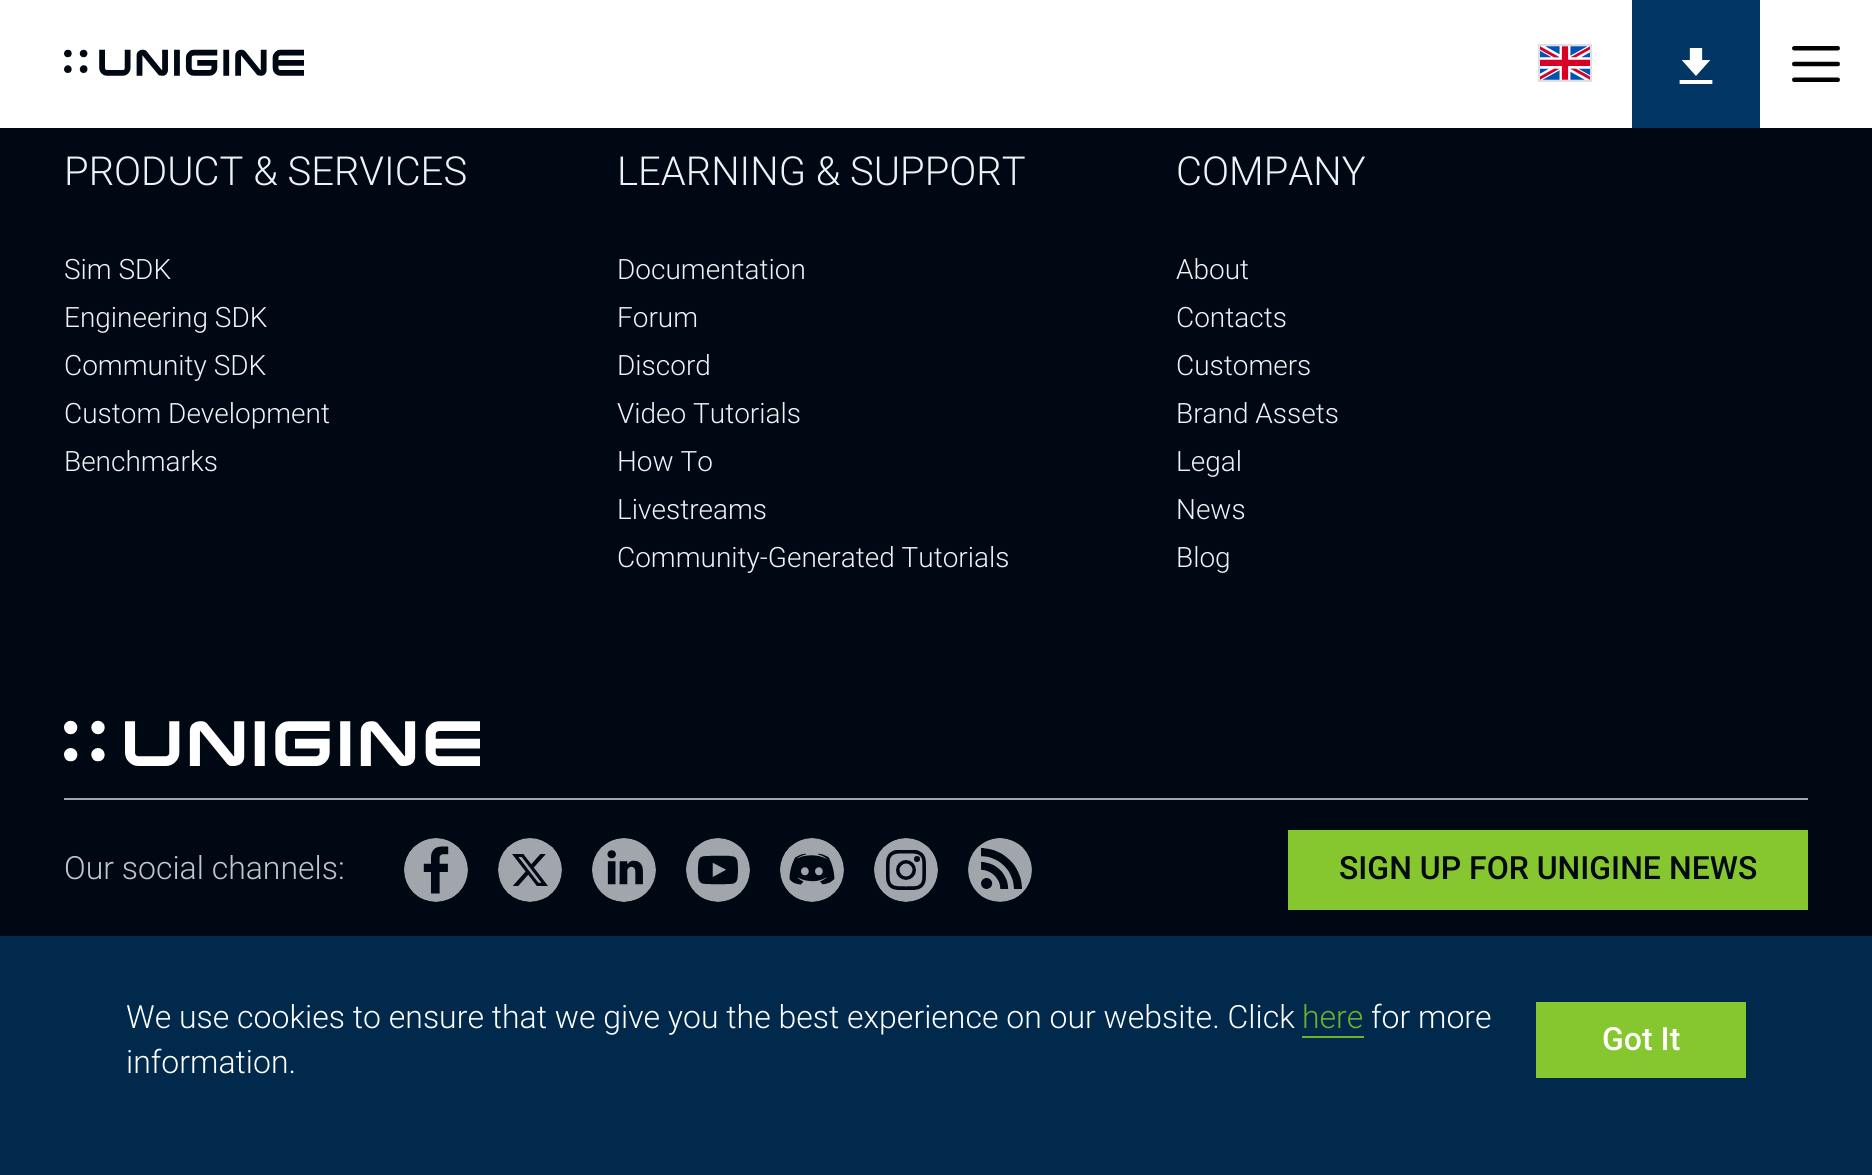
import math
import cairo


def use_color(cr, r, g, b):
  cr.set_source_rgb(r / 255, g / 255, b / 255)

def text(cr, x, y, s, family, size, color, bold=False, italic=False):
  cr.select_font_face(family, cairo.FONT_SLANT_ITALIC if italic else cairo.FONT_SLANT_NORMAL, cairo.FONT_WEIGHT_BOLD if bold else cairo.FONT_WEIGHT_NORMAL)
  cr.set_font_size(size)
  use_color(cr, *color)
  cr.move_to(x, y)
  cr.show_text(s)

def box(cr, x, y, w, h, *color):
  use_color(cr, *color)
  cr.rectangle(x, y, w, h)
  cr.fill()

def picture(cr, path, x, y, w, h):
  cr.save()
  cr.set_source_surface(cairo.ImageSurface.create_from_png(path), x, y)
  cr.rectangle(x, y, w, h)
  cr.fill()
  cr.restore()

def draw(cr):
  use_color(cr, 0, 9, 19)
  cr.paint()
  box(cr, 0, 0, 1872, 128, 255, 255, 255)
  picture(cr, "img_01.png", 64, 49, 240, 27)
  cr.rectangle(1539, 45, 52, 36)
  use_color(cr, 219, 224, 228)
  cr.stroke()
  picture(cr, "img_02.png", 1540, 46, 50, 34)
  box(cr, 1632, 0, 128, 128, 1, 54, 101)
  picture(cr, "img_03.png", 1679, 48, 34, 36)
  picture(cr, "img_04.png", 1792, 46, 48, 36)
  box(cr, 64, 798, 1744, 2, 160, 166, 172)
  picture(cr, "img_05.png", 64, 720, 416, 46)
  picture(cr, "img_06.png", 404, 838, 64, 64)
  picture(cr, "img_07.png", 498, 838, 64, 64)
  picture(cr, "img_08.png", 592, 838, 64, 64)
  picture(cr, "img_09.png", 686, 838, 64, 64)
  picture(cr, "img_10.png", 780, 838, 64, 64)
  picture(cr, "img_11.png", 874, 838, 64, 64)
  picture(cr, "img_12.png", 968, 838, 64, 64)
  box(cr, 1288, 830, 520, 80, 134, 198, 47)
  box(cr, 0, 936, 1872, 239, 0, 41, 75)
  box(cr, 1302, 1036, 62, 2, 110, 179, 43)
  box(cr, 1536, 1002, 210, 76, 134, 198, 47)
  text(cr, 64, 185, "PRODUCT & SERVICES", "Roboto Light", 40, (239, 243, 247))
  text(cr, 64, 279, "Sim SDK", "Roboto Light", 28, (239, 243, 247))
  text(cr, 64, 327, "Engineering SDK", "Roboto Light", 28, (239, 243, 247))
  text(cr, 64, 375, "Community SDK", "Roboto Light", 28, (239, 243, 247))
  text(cr, 64, 423, "Custom Development", "Roboto Light", 28, (239, 243, 247))
  text(cr, 64, 471, "Benchmarks", "Roboto Light", 28, (239, 243, 247))
  text(cr, 617, 185, "LEARNING & SUPPORT", "Roboto Light", 40, (239, 243, 247))
  text(cr, 617, 279, "Documentation", "Roboto Light", 28, (239, 243, 247))
  text(cr, 617, 327, "Forum", "Roboto Light", 28, (239, 243, 247))
  text(cr, 617, 375, "Discord", "Roboto Light", 28, (239, 243, 247))
  text(cr, 617, 423, "Video Tutorials", "Roboto Light", 28, (239, 243, 247))
  text(cr, 617, 471, "How To", "Roboto Light", 28, (239, 243, 247))
  text(cr, 617, 519, "Livestreams", "Roboto Light", 28, (239, 243, 247))
  text(cr, 617, 567, "Community-Generated Tutorials", "Roboto Light", 28, (239, 243, 247))
  text(cr, 1176, 185, "COMPANY", "Roboto Light", 40, (239, 243, 247))
  text(cr, 1176, 279, "About", "Roboto Light", 28, (239, 243, 247))
  text(cr, 1176, 327, "Contacts", "Roboto Light", 28, (239, 243, 247))
  text(cr, 1176, 375, "Customers", "Roboto Light", 28, (239, 243, 247))
  text(cr, 1176, 423, "Brand Assets", "Roboto Light", 28, (239, 243, 247))
  text(cr, 1176, 471, "Legal", "Roboto Light", 28, (239, 243, 247))
  text(cr, 1176, 519, "News", "Roboto Light", 28, (239, 243, 247))
  text(cr, 1176, 567, "Blog", "Roboto Light", 28, (239, 243, 247))
  text(cr, 64, 879, "Our social channels:", "Roboto Light", 32, (192, 198, 203))
  text(cr, 1339, 879, "SIGN UP FOR UNIGINE NEWS", "Roboto Medium", 32, (0, 9, 19))
  text(cr, 126, 1028, "We use cookies to ensure that we give you the best experience on our website. Click", "Roboto Light", 32, (255, 255, 255))
  text(cr, 1302, 1028, "here", "Roboto Light", 32, (110, 179, 43))
  text(cr, 1371, 1028, "for more", "Roboto Light", 32, (255, 255, 255))
  text(cr, 126, 1073, "information.", "Roboto Light", 32, (255, 255, 255))
  text(cr, 1602, 1050, "Got It", "Roboto Medium", 32, (255, 255, 255))


surface = cairo.ImageSurface(cairo.FORMAT_RGB24, 1872, 1175)
cr = cairo.Context(surface)
options = cairo.FontOptions()
options.set_hint_metrics(cairo.HINT_METRICS_OFF)
options.set_hint_style(cairo.HINT_STYLE_NONE)
cr.set_font_options(options)
cr.set_miter_limit(4)
draw(cr)
surface.write_to_png("out.png")
